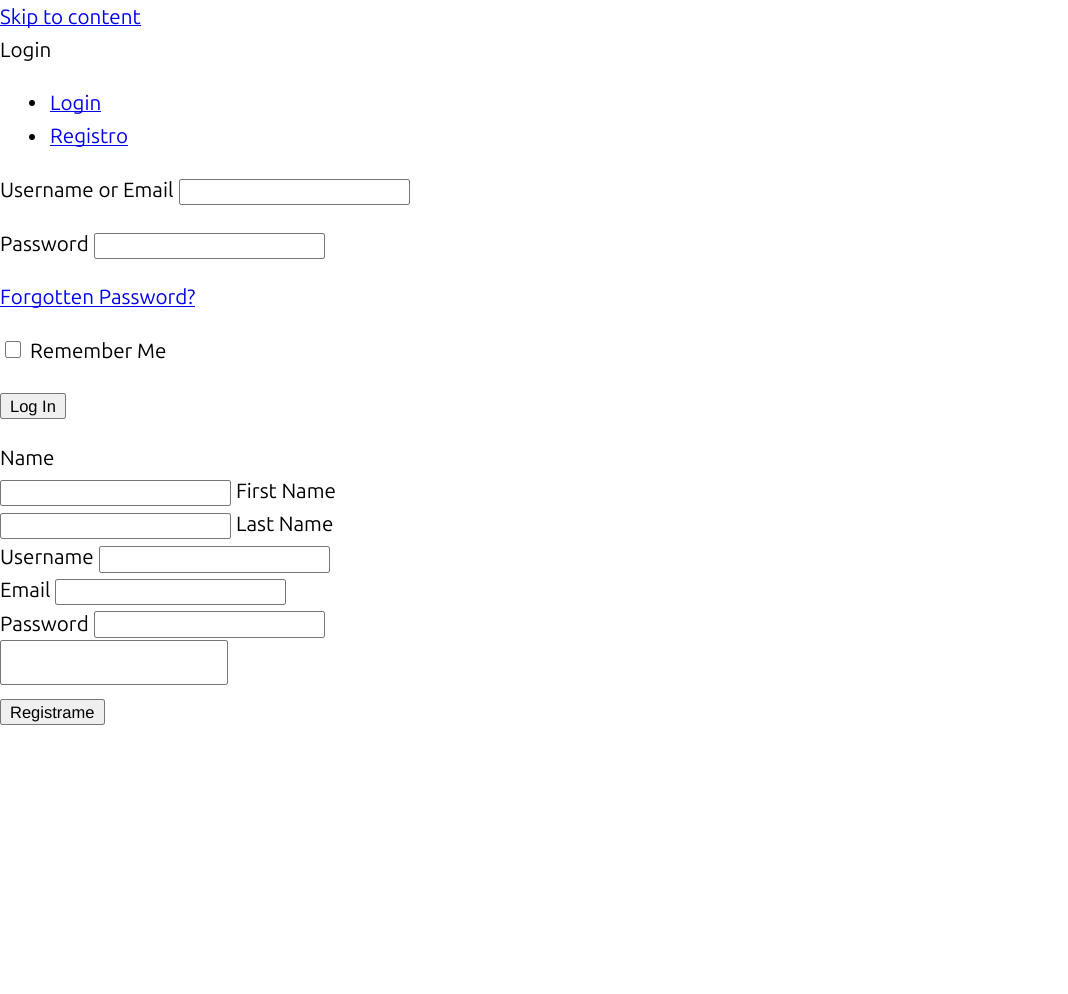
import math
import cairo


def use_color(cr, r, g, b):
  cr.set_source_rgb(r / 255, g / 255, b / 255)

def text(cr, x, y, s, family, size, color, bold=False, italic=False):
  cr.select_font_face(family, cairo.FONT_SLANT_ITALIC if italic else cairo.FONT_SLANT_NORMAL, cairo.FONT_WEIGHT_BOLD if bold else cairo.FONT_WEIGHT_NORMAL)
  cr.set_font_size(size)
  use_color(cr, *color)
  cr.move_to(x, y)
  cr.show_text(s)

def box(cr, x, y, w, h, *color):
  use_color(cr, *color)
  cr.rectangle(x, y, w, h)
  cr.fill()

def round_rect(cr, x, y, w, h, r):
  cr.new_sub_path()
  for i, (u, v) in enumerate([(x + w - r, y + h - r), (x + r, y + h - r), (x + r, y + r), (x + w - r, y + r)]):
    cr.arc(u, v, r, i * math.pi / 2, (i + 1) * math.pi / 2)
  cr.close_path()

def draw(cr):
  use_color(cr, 255, 255, 255)
  cr.paint()
  box(cr, 0, 25, 141, 1, 0, 0, 238)
  use_color(cr, 0, 0, 0)
  cr.arc(32, 103, 3, 0, 2 * math.pi)
  cr.fill()
  box(cr, 50, 111, 51, 1, 0, 0, 238)
  use_color(cr, 0, 0, 0)
  cr.arc(32, 137, 3, 0, 2 * math.pi)
  cr.fill()
  box(cr, 50, 145, 78, 1, 0, 0, 238)
  round_rect(cr, 179.5, 179.5, 230, 25, 2)
  use_color(cr, 118, 118, 118)
  cr.set_line_width(1)
  cr.stroke()
  round_rect(cr, 94.5, 233.5, 230, 25, 2)
  cr.stroke()
  box(cr, 0, 306, 195, 1, 0, 0, 238)
  round_rect(cr, 5.5, 341.5, 15, 16, 2)
  use_color(cr, 118, 118, 118)
  cr.stroke()
  use_color(cr, 239, 239, 239)
  round_rect(cr, 0.5, 393.5, 65, 25, 2)
  cr.fill_preserve()
  use_color(cr, 118, 118, 118)
  cr.stroke()
  round_rect(cr, 0.5, 480.5, 230, 25, 2)
  cr.stroke()
  round_rect(cr, 0.5, 513.5, 230, 25, 2)
  cr.stroke()
  round_rect(cr, 99.5, 546.5, 230, 26, 2)
  cr.stroke()
  round_rect(cr, 55.5, 579.5, 230, 25, 2)
  cr.stroke()
  round_rect(cr, 94.5, 611.5, 230, 26, 2)
  cr.stroke()
  round_rect(cr, 0.5, 640.5, 227, 44, 2)
  cr.stroke()
  use_color(cr, 239, 239, 239)
  round_rect(cr, 0.5, 699.5, 104, 25, 2)
  cr.fill_preserve()
  use_color(cr, 118, 118, 118)
  cr.stroke()
  text(cr, 0, 24, "Skip to content", "Ubuntu", 20.6, (0, 0, 238))
  text(cr, 0, 57, "Login", "Ubuntu", 20.6, (0, 0, 0))
  text(cr, 50, 110, "Login", "Ubuntu", 20.6, (0, 0, 238))
  text(cr, 50, 143, "Registro", "Ubuntu", 20.6, (0, 0, 238))
  text(cr, 0, 197, "Username or Email", "Ubuntu", 20.6, (0, 0, 0))
  text(cr, 0, 251, "Password", "Ubuntu", 20.6, (0, 0, 0))
  text(cr, 0, 304, "Forgotten Password?", "Ubuntu", 20.6, (0, 0, 238))
  text(cr, 30, 358, "Remember Me", "Ubuntu", 20.6, (0, 0, 0))
  text(cr, 10, 412, "Log In", "Liberation Sans", 16.5, (0, 0, 0))
  text(cr, 0, 465, "Name", "Ubuntu", 20.6, (0, 0, 0))
  text(cr, 236, 498, "First Name", "Ubuntu", 20.6, (0, 0, 0))
  text(cr, 236, 531, "Last Name", "Ubuntu", 20.6, (0, 0, 0))
  text(cr, 0, 564, "Username", "Ubuntu", 20.6, (0, 0, 0))
  text(cr, 0, 597, "Email", "Ubuntu", 20.6, (0, 0, 0))
  text(cr, 0, 631, "Password", "Ubuntu", 20.6, (0, 0, 0))
  text(cr, 10, 718, "Registrame", "Liberation Sans", 16.5, (0, 0, 0))


surface = cairo.ImageSurface(cairo.FORMAT_RGB24, 1068, 994)
cr = cairo.Context(surface)
options = cairo.FontOptions()
options.set_hint_metrics(cairo.HINT_METRICS_OFF)
options.set_hint_style(cairo.HINT_STYLE_NONE)
cr.set_font_options(options)
cr.set_miter_limit(4)
draw(cr)
surface.write_to_png("out.png")
